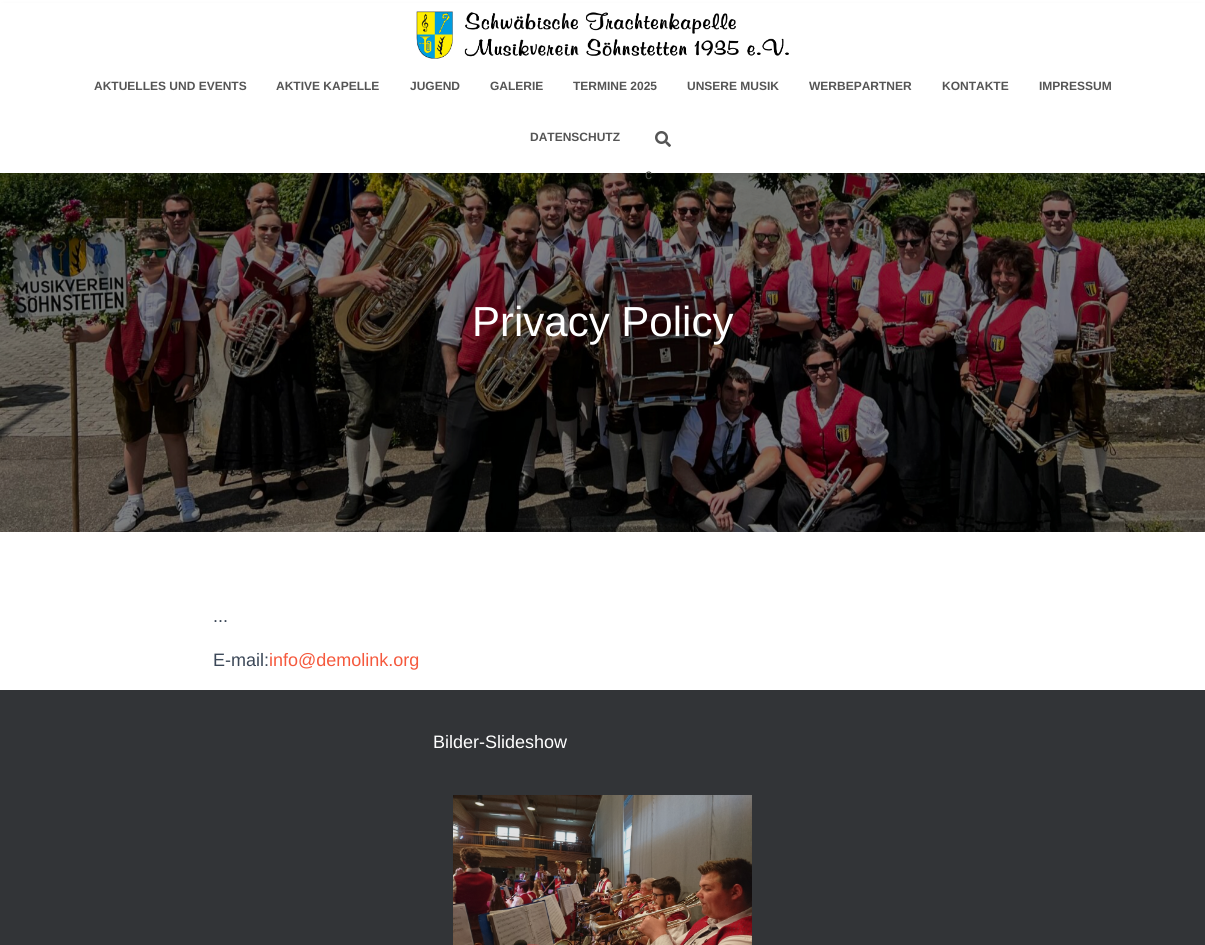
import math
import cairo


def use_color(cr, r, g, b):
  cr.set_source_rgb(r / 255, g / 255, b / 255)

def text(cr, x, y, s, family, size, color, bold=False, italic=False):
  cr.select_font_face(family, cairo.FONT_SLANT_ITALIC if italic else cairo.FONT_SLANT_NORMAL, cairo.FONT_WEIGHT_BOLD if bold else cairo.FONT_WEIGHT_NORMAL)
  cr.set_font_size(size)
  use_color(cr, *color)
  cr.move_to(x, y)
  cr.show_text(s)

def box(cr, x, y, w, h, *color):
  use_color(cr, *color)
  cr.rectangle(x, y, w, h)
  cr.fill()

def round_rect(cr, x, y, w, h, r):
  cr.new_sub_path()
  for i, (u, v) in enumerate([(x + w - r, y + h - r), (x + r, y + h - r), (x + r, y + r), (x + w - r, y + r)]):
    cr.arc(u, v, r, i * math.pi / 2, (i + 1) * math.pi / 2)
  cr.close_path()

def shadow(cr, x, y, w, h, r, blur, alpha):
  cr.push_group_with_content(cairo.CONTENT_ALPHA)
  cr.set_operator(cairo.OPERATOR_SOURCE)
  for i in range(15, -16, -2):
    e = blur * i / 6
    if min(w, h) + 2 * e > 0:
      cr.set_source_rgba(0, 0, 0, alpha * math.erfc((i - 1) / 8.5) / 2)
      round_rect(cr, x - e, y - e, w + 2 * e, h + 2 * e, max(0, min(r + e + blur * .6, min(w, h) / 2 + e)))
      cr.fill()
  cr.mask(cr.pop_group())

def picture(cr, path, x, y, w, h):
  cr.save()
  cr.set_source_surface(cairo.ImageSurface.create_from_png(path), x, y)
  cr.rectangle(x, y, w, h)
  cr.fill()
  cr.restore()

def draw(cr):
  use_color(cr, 255, 255, 255)
  cr.paint()
  picture(cr, "img_01.png", 0, 531, 1205, 1)
  picture(cr, "img_04.png", 0, 173, 1205, 359)
  use_color(cr, 0, 0, 0)
  shadow(cr, 4, 10, 1197, 165, 0, 5, 0.15)
  box(cr, 0, 3, 1205, 170, 255, 255, 255)
  picture(cr, "img_02.png", 416, 11, 373, 48)
  picture(cr, "img_03.png", 655, 131, 16, 16)
  box(cr, 0, 690, 1205, 255, 50, 52, 55)
  picture(cr, "img_05.png", 453, 795, 299, 150)
  text(cr, 94, 90, "AKTUELLES UND EVENTS", "Liberation Sans", 12, (85, 85, 85), bold=True)
  text(cr, 276, 90, "AKTIVE KAPELLE", "Liberation Sans", 12, (85, 85, 85), bold=True)
  text(cr, 410, 90, "JUGEND", "Liberation Sans", 12, (85, 85, 85), bold=True)
  text(cr, 490, 90, "GALERIE", "Liberation Sans", 12, (85, 85, 85), bold=True)
  text(cr, 573, 90, "TERMINE 2025", "Liberation Sans", 12, (85, 85, 85), bold=True)
  text(cr, 687, 90, "UNSERE MUSIK", "Liberation Sans", 12, (85, 85, 85), bold=True)
  text(cr, 809, 90, "WERBEPARTNER", "Liberation Sans", 12, (85, 85, 85), bold=True)
  text(cr, 942, 90, "KONTAKTE", "Liberation Sans", 12, (85, 85, 85), bold=True)
  text(cr, 1039, 90, "IMPRESSUM", "Liberation Sans", 12, (85, 85, 85), bold=True)
  text(cr, 530, 141, "DATENSCHUTZ", "Liberation Sans", 12, (85, 85, 85), bold=True)
  text(cr, 645, 179, "c", "Liberation Sans", 14, (72, 74, 69))
  text(cr, 645, 239, "n", "Liberation Sans", 14, (71, 64, 70))
  text(cr, 472, 336, "Privacy Policy", "Liberation Sans", 42, (255, 255, 255))
  text(cr, 213, 622, "...", "Liberation Sans", 18, (60, 72, 88))
  text(cr, 213, 666, "E-mail:", "Liberation Sans", 18, (60, 72, 88))
  text(cr, 269, 666, "info@demolink.org", "Liberation Sans", 18, (245, 89, 61))
  text(cr, 433, 748, "Bilder-Slideshow", "Liberation Sans", 18, (255, 255, 255))


surface = cairo.ImageSurface(cairo.FORMAT_RGB24, 1205, 945)
cr = cairo.Context(surface)
options = cairo.FontOptions()
options.set_hint_metrics(cairo.HINT_METRICS_OFF)
options.set_hint_style(cairo.HINT_STYLE_NONE)
cr.set_font_options(options)
cr.set_miter_limit(4)
draw(cr)
surface.write_to_png("out.png")
